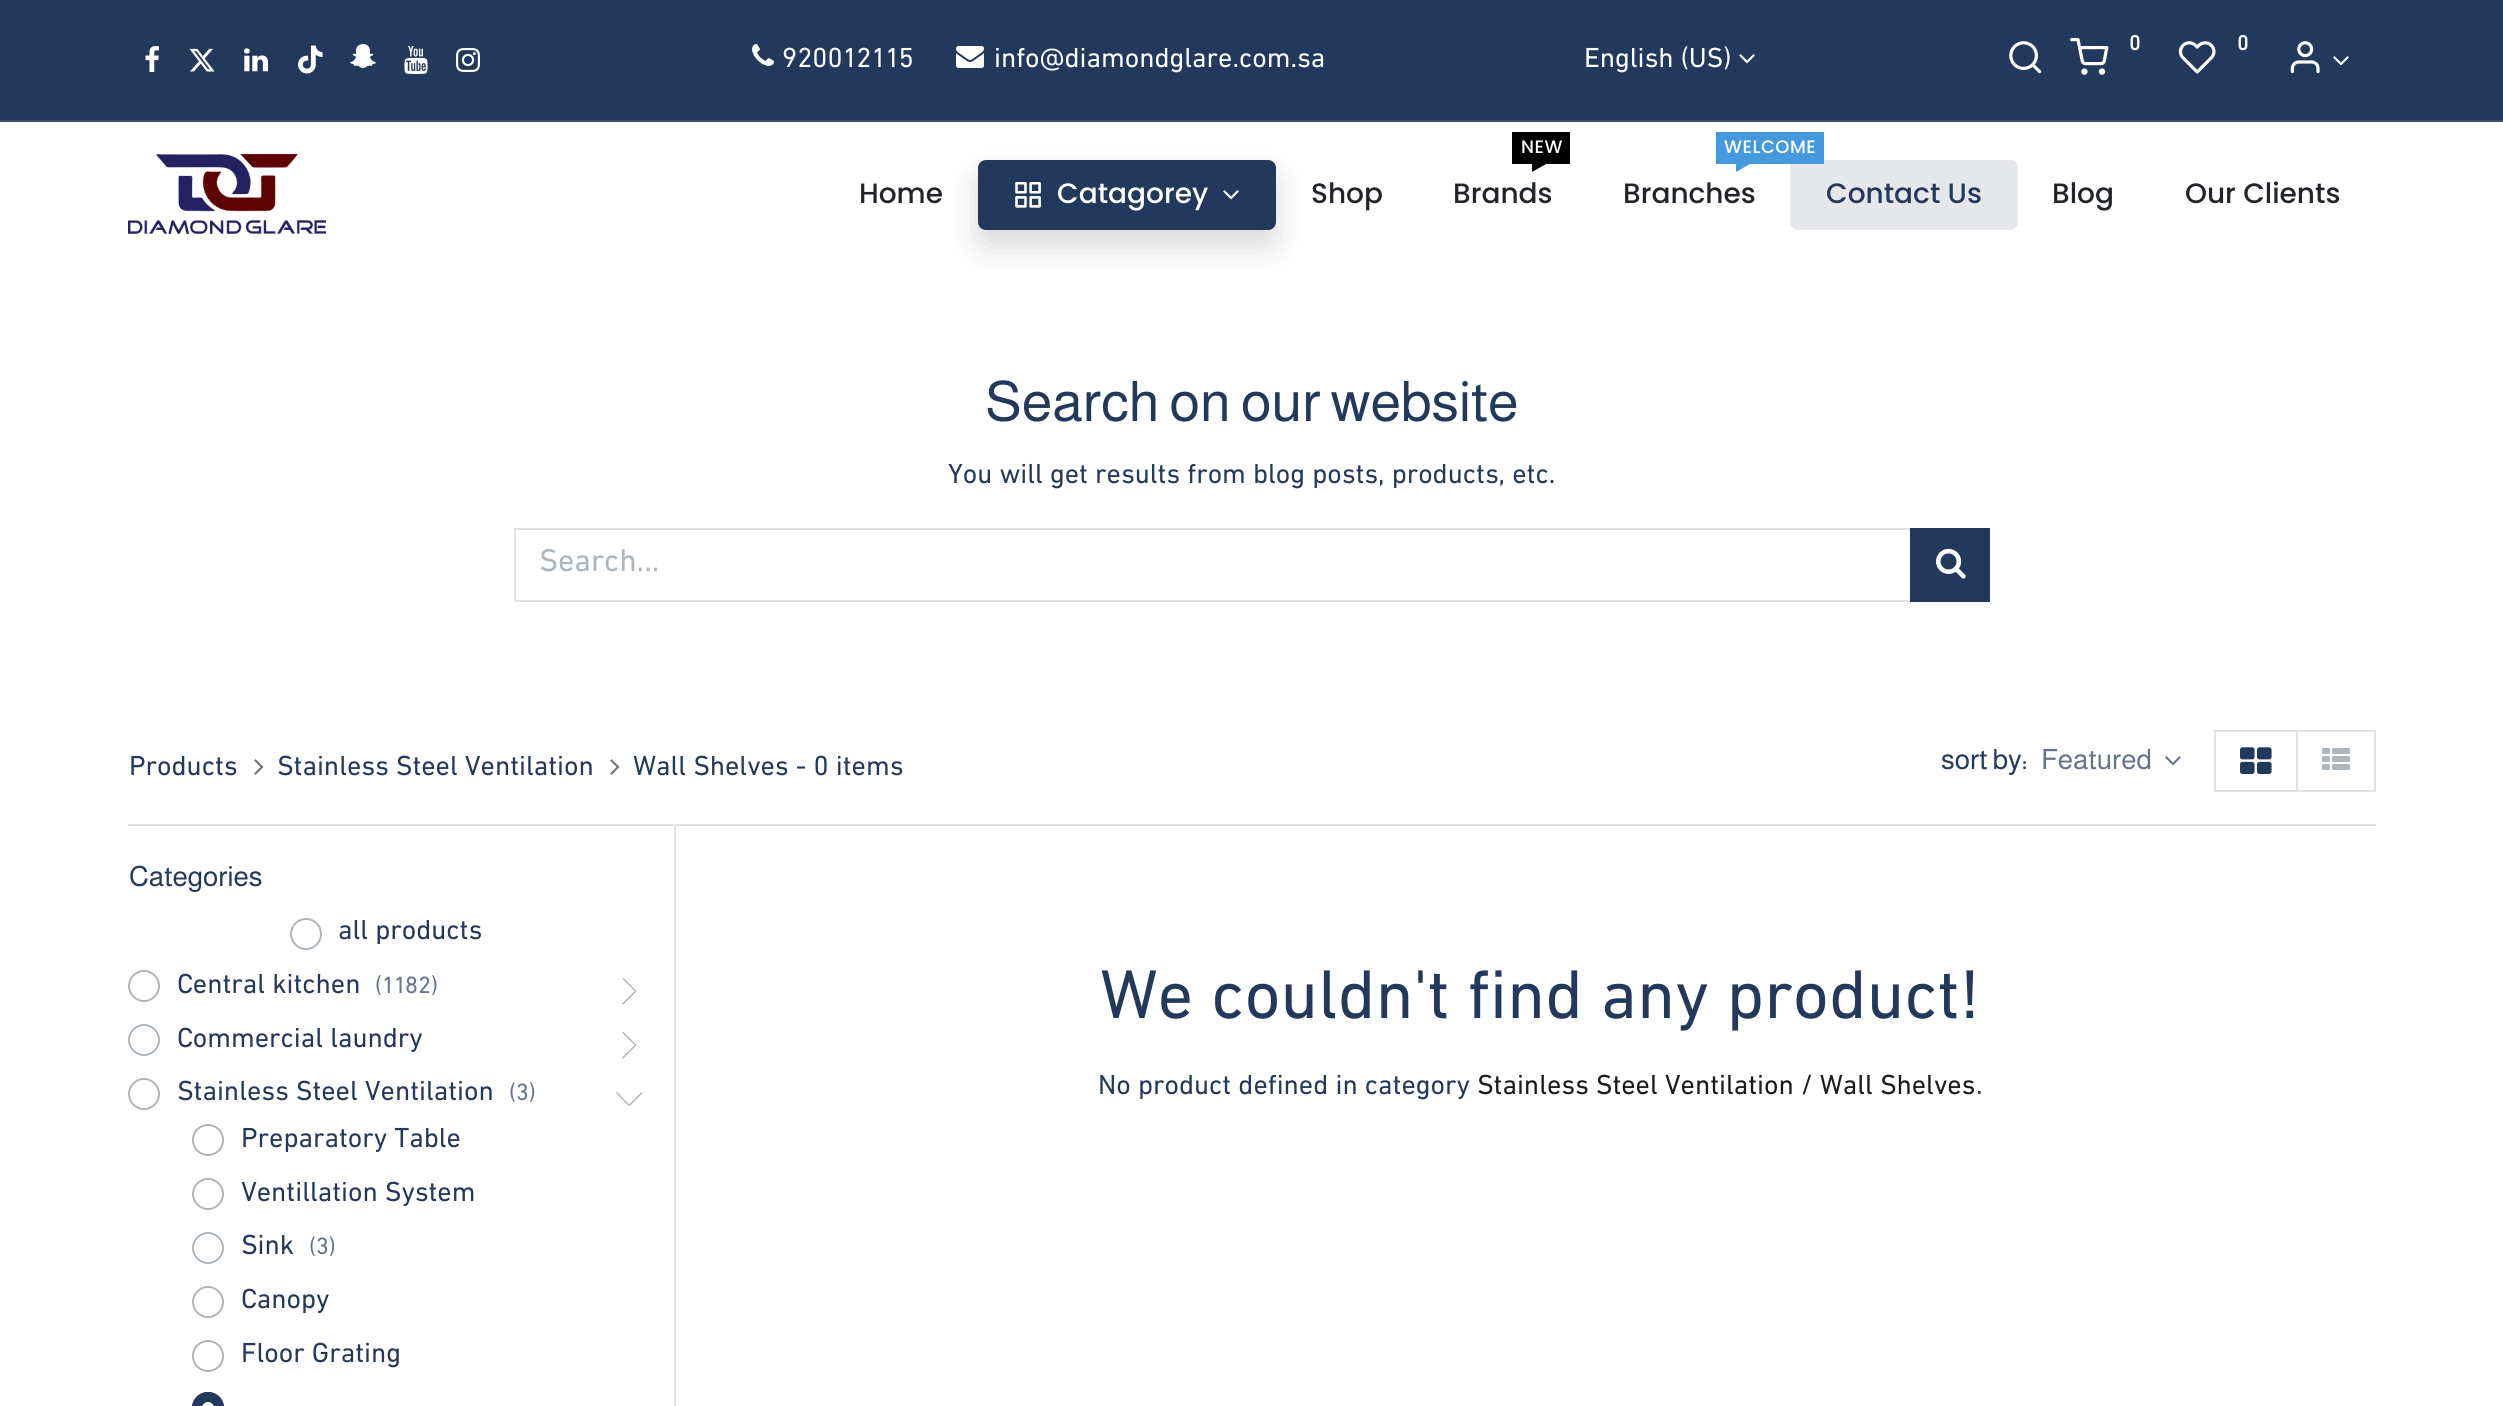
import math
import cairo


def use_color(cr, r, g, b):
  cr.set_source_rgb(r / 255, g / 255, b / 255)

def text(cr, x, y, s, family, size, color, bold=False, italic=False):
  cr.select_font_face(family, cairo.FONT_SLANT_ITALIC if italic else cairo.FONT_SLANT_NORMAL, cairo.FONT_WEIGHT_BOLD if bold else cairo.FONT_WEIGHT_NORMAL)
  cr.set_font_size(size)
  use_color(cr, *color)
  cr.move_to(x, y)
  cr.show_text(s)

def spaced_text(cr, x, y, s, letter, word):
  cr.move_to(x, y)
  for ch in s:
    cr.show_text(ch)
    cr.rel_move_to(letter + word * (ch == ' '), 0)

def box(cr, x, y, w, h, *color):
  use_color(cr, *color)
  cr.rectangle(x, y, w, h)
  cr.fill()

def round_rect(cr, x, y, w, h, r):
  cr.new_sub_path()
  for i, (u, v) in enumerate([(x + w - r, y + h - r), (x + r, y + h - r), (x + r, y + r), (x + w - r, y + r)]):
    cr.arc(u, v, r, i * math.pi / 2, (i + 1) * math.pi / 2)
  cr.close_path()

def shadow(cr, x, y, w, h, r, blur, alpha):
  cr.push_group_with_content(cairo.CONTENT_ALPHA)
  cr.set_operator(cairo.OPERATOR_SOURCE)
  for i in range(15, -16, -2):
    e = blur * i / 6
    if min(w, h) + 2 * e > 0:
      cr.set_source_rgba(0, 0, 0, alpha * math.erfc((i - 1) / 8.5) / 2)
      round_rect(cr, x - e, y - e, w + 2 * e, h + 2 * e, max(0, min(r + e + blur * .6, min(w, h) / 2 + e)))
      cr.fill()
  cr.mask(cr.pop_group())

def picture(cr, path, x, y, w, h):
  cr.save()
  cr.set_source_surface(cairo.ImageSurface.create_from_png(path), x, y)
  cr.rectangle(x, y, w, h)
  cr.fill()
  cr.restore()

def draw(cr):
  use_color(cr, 255, 255, 255)
  cr.paint()
  box(cr, 0, 0, 2503, 120, 35, 57, 91)
  box(cr, 0, 120, 2503, 2, 61, 81, 111)
  picture(cr, "img_01.png", 145, 46, 14, 26)
  picture(cr, "img_02.png", 189, 48, 26, 24)
  picture(cr, "img_03.png", 244, 48, 24, 24)
  picture(cr, "img_04.png", 298, 45, 25, 29)
  picture(cr, "img_05.png", 350, 44, 26, 24)
  picture(cr, "img_06.png", 404, 46, 24, 28)
  picture(cr, "img_07.png", 456, 48, 24, 24)
  picture(cr, "img_08.png", 752, 44, 22, 22)
  picture(cr, "img_09.png", 956, 46, 28, 22)
  picture(cr, "img_10.png", 1739, 54, 16, 10)
  picture(cr, "img_11.png", 2009, 41, 33, 33)
  picture(cr, "img_12.png", 2070, 38, 39, 37)
  picture(cr, "img_13.png", 2178, 41, 38, 33)
  picture(cr, "img_14.png", 2290, 41, 30, 33)
  picture(cr, "img_10.png", 2333, 56, 16, 10)
  picture(cr, "img_15.png", 128, 154, 198, 80)
  use_color(cr, 0, 0, 0)
  shadow(cr, 978, 176, 298, 70, 8, 16, 0.15)
  use_color(cr, 35, 57, 91)
  round_rect(cr, 978, 160, 298, 70, 8)
  cr.fill()
  picture(cr, "img_16.png", 1015, 182, 26, 26)
  picture(cr, "img_10.png", 1223, 190, 16, 10)
  box(cr, 1512, 132, 58, 32, 0, 0, 0)
  cr.new_path()
  cr.move_to(1532, 164)
  cr.line_to(1546, 164)
  cr.line_to(1532, 172)
  cr.close_path()
  cr.fill()
  use_color(cr, 229, 231, 235)
  round_rect(cr, 1790, 160, 228, 70, 8)
  cr.fill()
  box(cr, 1716, 132, 108, 32, 69, 153, 222)
  cr.new_path()
  cr.move_to(1736, 164)
  cr.line_to(1750, 164)
  cr.line_to(1736, 172)
  cr.close_path()
  cr.fill()
  cr.rectangle(515, 529, 1396, 72)
  use_color(cr, 222, 226, 230)
  cr.stroke()
  box(cr, 1910, 528, 80, 74, 35, 57, 91)
  picture(cr, "img_17.png", 1936, 548, 30, 31)
  picture(cr, "img_18.png", 254, 759, 10, 16)
  picture(cr, "img_18.png", 610, 759, 10, 16)
  picture(cr, "img_19.png", 2165, 756, 16, 10)
  cr.rectangle(2297, 731, 78, 60)
  use_color(cr, 222, 226, 230)
  cr.stroke()
  cr.rectangle(2215, 731, 82, 60)
  cr.stroke()
  picture(cr, "img_20.png", 2240, 747, 32, 27)
  picture(cr, "img_21.png", 2322, 748, 28, 22)
  box(cr, 128, 824, 2248, 2, 222, 226, 230)
  box(cr, 674, 826, 2, 580, 222, 226, 230)
  cr.arc(306, 934, 15, 0, 2 * math.pi)
  use_color(cr, 173, 181, 189)
  cr.stroke()
  cr.arc(144, 986, 15, 0, 2 * math.pi)
  cr.stroke()
  picture(cr, "img_22.png", 622, 977, 15, 28)
  cr.arc(144, 1040, 15, 0, 2 * math.pi)
  cr.stroke()
  picture(cr, "img_22.png", 622, 1031, 15, 28)
  cr.arc(144, 1094, 15, 0, 2 * math.pi)
  cr.stroke()
  picture(cr, "img_23.png", 616, 1092, 27, 14)
  cr.arc(208, 1140, 15, 0, 2 * math.pi)
  cr.stroke()
  cr.arc(208, 1194, 15, 0, 2 * math.pi)
  cr.stroke()
  cr.arc(208, 1248, 15, 0, 2 * math.pi)
  cr.stroke()
  cr.arc(208, 1302, 15, 0, 2 * math.pi)
  cr.stroke()
  cr.arc(208, 1356, 15, 0, 2 * math.pi)
  cr.stroke()
  use_color(cr, 35, 57, 91)
  cr.new_path()
  cr.move_to(208, 1392)
  cr.curve_to(217, 1392, 224, 1399, 224, 1408)
  cr.line_to(224, 1406)
  cr.line_to(192, 1406)
  cr.line_to(192, 1408)
  cr.curve_to(192, 1399, 199, 1392, 208, 1392)
  cr.close_path()
  cr.fill()
  cr.arc(208, 1408, 15, 0, 2 * math.pi)
  cr.stroke()
  use_color(cr, 255, 255, 255)
  cr.arc(208, 1408, 6, 0, 2 * math.pi)
  cr.fill()
  text(cr, 782, 67, "920012115", "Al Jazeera", 28, (255, 255, 255))
  text(cr, 994, 67, "info@diamondglare.com.sa", "Al Jazeera", 28, (255, 255, 255))
  text(cr, 1584, 67, "English (US)", "Al Jazeera", 28, (255, 255, 255))
  text(cr, 2129, 50, "0", "Al Jazeera", 21, (255, 255, 255), bold=True)
  text(cr, 2237, 50, "0", "Al Jazeera", 21, (255, 255, 255), bold=True)
  text(cr, 859, 203, "Home", "Poppins Medium", 28, (33, 37, 41))
  text(cr, 1057, 203, "Catagorey", "Poppins Medium", 28, (255, 255, 255))
  text(cr, 1311, 203, "Shop", "Poppins Medium", 28, (33, 37, 41))
  cr.set_font_size(18)
  use_color(cr, 255, 255, 255)
  spaced_text(cr, 1521, 153, "NEW", 0.5, 0)
  text(cr, 1453, 203, "Brands", "Poppins Medium", 28, (33, 37, 41))
  cr.set_font_size(18)
  use_color(cr, 255, 255, 255)
  spaced_text(cr, 1724, 153, "WELCOME", 0.5, 0)
  text(cr, 1623, 203, "Branches", "Poppins Medium", 28, (33, 37, 41))
  text(cr, 1826, 203, "Contact Us", "Poppins Medium", 28, (35, 57, 91))
  text(cr, 2052, 203, "Blog", "Poppins Medium", 28, (33, 37, 41))
  text(cr, 2185, 203, "Our Clients", "Poppins Medium", 28, (33, 37, 41))
  text(cr, 985, 421, "Search on our website", "Almarai", 56, (35, 57, 91))
  text(cr, 948, 483, "You will get results from blog posts, products, etc.", "Al Jazeera", 28, (35, 57, 91))
  text(cr, 539, 571, "Search...", "Al Jazeera", 32, (173, 181, 189))
  text(cr, 129, 775, "Products", "Al Jazeera", 28, (35, 57, 91))
  text(cr, 277, 775, "Stainless Steel Ventilation", "Al Jazeera", 28, (35, 57, 91))
  text(cr, 633, 775, "Wall Shelves - 0 items", "Al Jazeera", 28, (35, 57, 91))
  text(cr, 1941, 769, "sort by:", "Almarai", 28, (35, 57, 91))
  text(cr, 2041, 769, "Featured", "Almarai", 28, (101, 116, 140))
  text(cr, 129, 886, "Categories", "Almarai", 28, (35, 57, 91))
  text(cr, 338, 939, "all products", "Al Jazeera", 28, (35, 57, 91))
  text(cr, 177, 993, "Central kitchen", "Al Jazeera", 28, (35, 57, 91))
  text(cr, 375, 993, "(1182)", "Al Jazeera", 24, (101, 116, 140))
  text(cr, 177, 1047, "Commercial laundry", "Al Jazeera", 28, (35, 57, 91))
  text(cr, 177, 1100, "Stainless Steel Ventilation", "Al Jazeera", 28, (35, 57, 91))
  text(cr, 509, 1100, "(3)", "Al Jazeera", 24, (101, 116, 140))
  text(cr, 241, 1147, "Preparatory Table", "Al Jazeera", 28, (35, 57, 91))
  text(cr, 241, 1201, "Ventillation System", "Al Jazeera", 28, (35, 57, 91))
  text(cr, 241, 1254, "Sink", "Al Jazeera", 28, (35, 57, 91))
  text(cr, 309, 1254, "(3)", "Al Jazeera", 24, (101, 116, 140))
  text(cr, 241, 1308, "Canopy", "Al Jazeera", 28, (35, 57, 91))
  text(cr, 241, 1362, "Floor Grating", "Al Jazeera", 28, (35, 57, 91))
  text(cr, 1100, 1018, "We couldn't find any product!", "Al Jazeera", 70, (35, 57, 91))
  text(cr, 1098, 1094, "No product defined in category", "Al Jazeera", 28, (35, 57, 91))
  text(cr, 1477, 1094, "Stainless Steel Ventilation / Wall Shelves", "Al Jazeera", 28, (26, 26, 26))
  text(cr, 1976, 1094, ".", "Al Jazeera", 28, (35, 57, 91))


surface = cairo.ImageSurface(cairo.FORMAT_RGB24, 2503, 1406)
cr = cairo.Context(surface)
options = cairo.FontOptions()
options.set_hint_metrics(cairo.HINT_METRICS_OFF)
options.set_hint_style(cairo.HINT_STYLE_NONE)
cr.set_font_options(options)
cr.set_miter_limit(4)
draw(cr)
surface.write_to_png("out.png")
